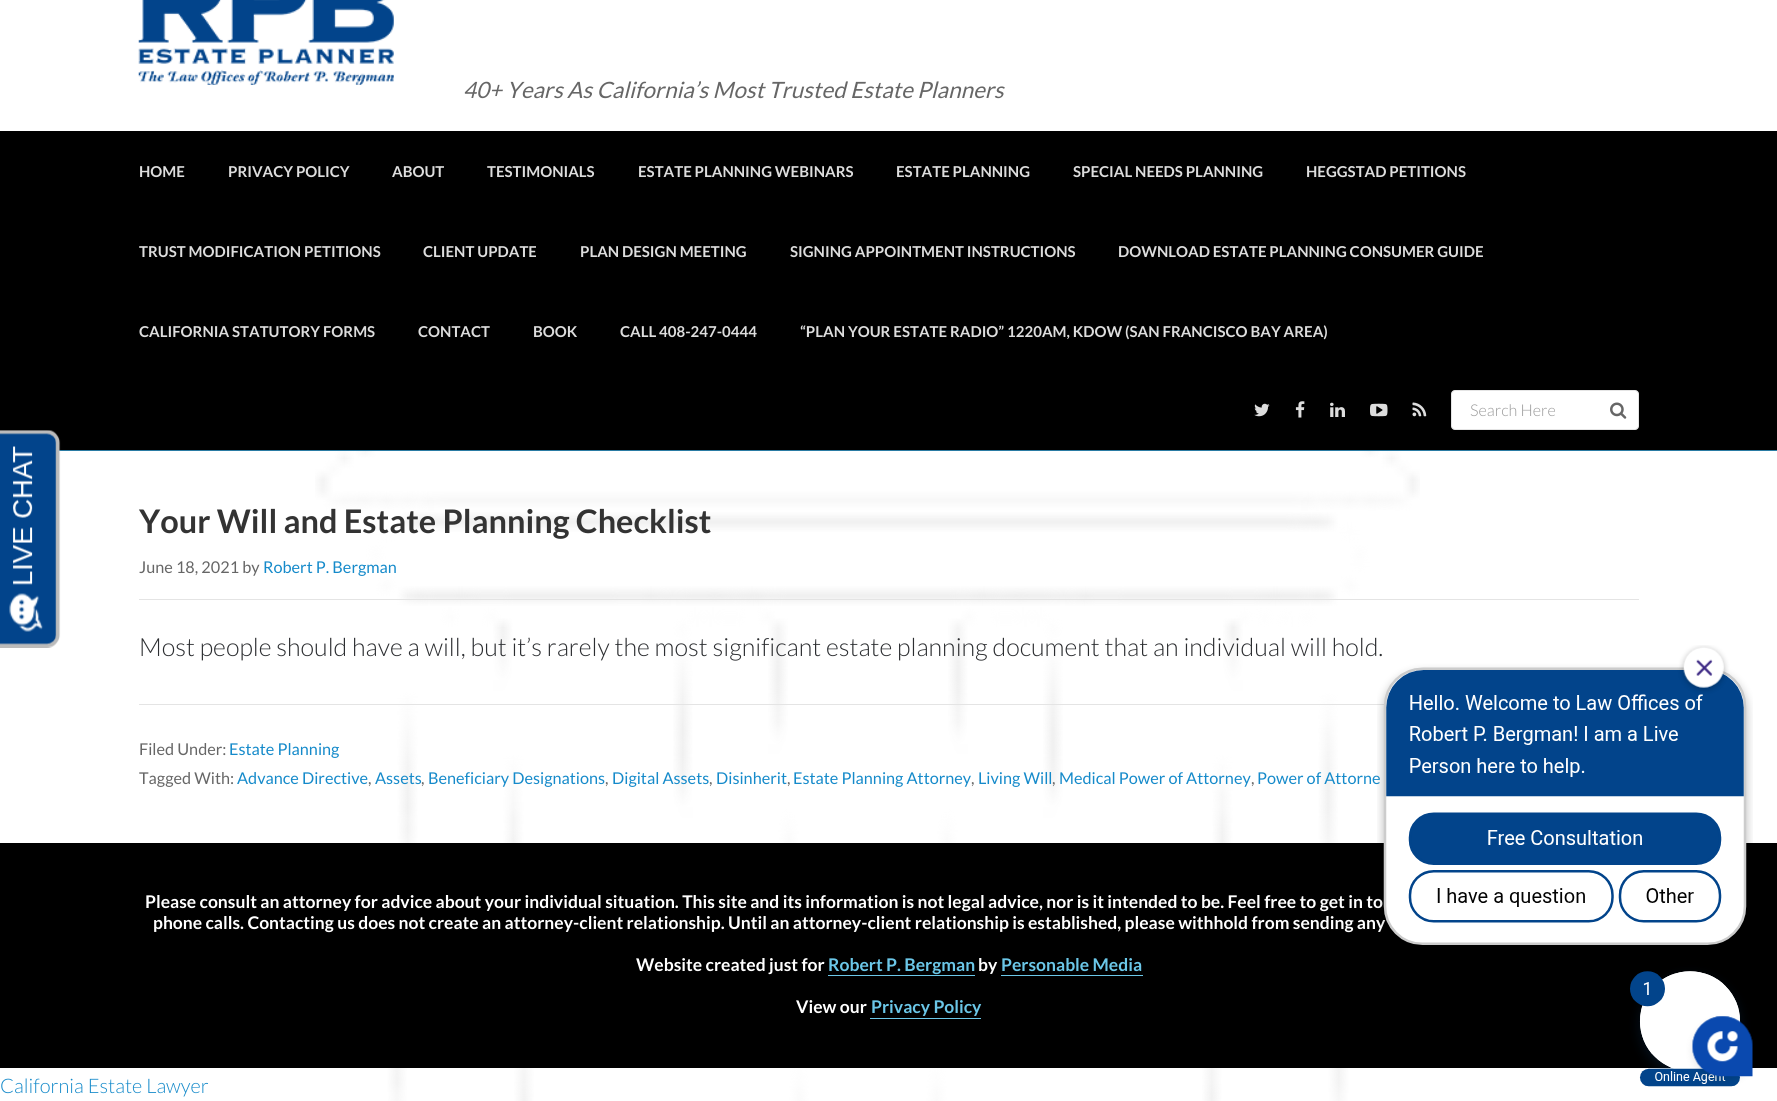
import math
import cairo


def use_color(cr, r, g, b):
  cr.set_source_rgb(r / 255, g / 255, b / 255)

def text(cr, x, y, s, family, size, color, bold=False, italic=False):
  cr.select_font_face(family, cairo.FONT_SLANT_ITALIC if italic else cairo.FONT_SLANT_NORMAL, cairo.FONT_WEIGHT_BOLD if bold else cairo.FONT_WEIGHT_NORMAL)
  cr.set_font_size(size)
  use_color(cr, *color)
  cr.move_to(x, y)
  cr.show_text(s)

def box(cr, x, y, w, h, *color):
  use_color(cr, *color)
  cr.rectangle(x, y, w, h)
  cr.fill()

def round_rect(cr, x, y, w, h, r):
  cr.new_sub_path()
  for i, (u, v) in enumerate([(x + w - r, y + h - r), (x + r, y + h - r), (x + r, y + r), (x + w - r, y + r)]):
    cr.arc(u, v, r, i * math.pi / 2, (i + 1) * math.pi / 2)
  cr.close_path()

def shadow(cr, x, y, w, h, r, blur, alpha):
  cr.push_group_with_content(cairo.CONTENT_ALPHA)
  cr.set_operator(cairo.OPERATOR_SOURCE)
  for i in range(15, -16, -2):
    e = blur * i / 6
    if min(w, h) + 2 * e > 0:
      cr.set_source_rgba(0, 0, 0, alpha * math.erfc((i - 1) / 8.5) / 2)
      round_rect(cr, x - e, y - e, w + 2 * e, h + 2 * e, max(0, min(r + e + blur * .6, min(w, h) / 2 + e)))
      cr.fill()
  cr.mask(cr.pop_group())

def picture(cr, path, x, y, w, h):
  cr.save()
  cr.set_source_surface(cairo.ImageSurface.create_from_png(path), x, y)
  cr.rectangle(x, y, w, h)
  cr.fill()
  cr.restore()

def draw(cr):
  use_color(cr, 255, 255, 255)
  cr.paint()
  picture(cr, "img_01.png", 315, 451, 1105, 650)
  box(cr, 0, 131, 1777, 319, 0, 0, 0)
  box(cr, 59, 450, 1718, 1, 42, 123, 163)
  picture(cr, "img_02.png", 0, 430, 61, 218)
  picture(cr, "img_03.png", 138, 0, 256, 85)
  picture(cr, "img_04.png", 1254, 403, 16, 14)
  picture(cr, "img_05.png", 1295, 401, 10, 17)
  picture(cr, "img_06.png", 1330, 402, 15, 15)
  picture(cr, "img_07.png", 1370, 403, 18, 14)
  picture(cr, "img_08.png", 1412, 402, 15, 15)
  use_color(cr, 255, 255, 255)
  round_rect(cr, 1451.5, 390.5, 187, 39, 3.5)
  cr.fill_preserve()
  use_color(cr, 228, 228, 228)
  cr.set_line_width(1)
  cr.stroke()
  picture(cr, "img_09.png", 1610, 402, 17, 17)
  box(cr, 139, 599, 1500, 1, 228, 228, 228)
  box(cr, 139, 704, 1245, 1, 228, 228, 228)
  box(cr, 0, 843, 1777, 225, 0, 0, 0)
  box(cr, 828, 975, 147, 1, 107, 199, 232)
  box(cr, 1001, 975, 142, 1, 107, 199, 232)
  box(cr, 870, 1018, 111, 1, 107, 199, 232)
  text(cr, 463, 98, "40+ Years As California’s Most Trusted Estate Planners", "Lato", 22.5, (102, 102, 102), italic=True)
  text(cr, 139, 177, "HOME", "Lato", 15, (221, 221, 221), bold=True)
  text(cr, 228, 177, "PRIVACY POLICY", "Lato", 15, (221, 221, 221), bold=True)
  text(cr, 392, 177, "ABOUT", "Lato", 15, (221, 221, 221), bold=True)
  text(cr, 487, 177, "TESTIMONIALS", "Lato", 15, (221, 221, 221), bold=True)
  text(cr, 638, 177, "ESTATE PLANNING WEBINARS", "Lato", 15, (221, 221, 221), bold=True)
  text(cr, 896, 177, "ESTATE PLANNING", "Lato", 15, (221, 221, 221), bold=True)
  text(cr, 1073, 177, "SPECIAL NEEDS PLANNING", "Lato", 15, (221, 221, 221), bold=True)
  text(cr, 1306, 177, "HEGGSTAD PETITIONS", "Lato", 15, (221, 221, 221), bold=True)
  text(cr, 139, 257, "TRUST MODIFICATION PETITIONS", "Lato", 15, (221, 221, 221), bold=True)
  text(cr, 423, 257, "CLIENT UPDATE", "Lato", 15, (221, 221, 221), bold=True)
  text(cr, 580, 257, "PLAN DESIGN MEETING", "Lato", 15, (221, 221, 221), bold=True)
  text(cr, 790, 257, "SIGNING APPOINTMENT INSTRUCTIONS", "Lato", 15, (221, 221, 221), bold=True)
  text(cr, 1118, 257, "DOWNLOAD ESTATE PLANNING CONSUMER GUIDE", "Lato", 15, (221, 221, 221), bold=True)
  text(cr, 139, 337, "CALIFORNIA STATUTORY FORMS", "Lato", 15, (221, 221, 221), bold=True)
  text(cr, 418, 337, "CONTACT", "Lato", 15, (221, 221, 221), bold=True)
  text(cr, 533, 337, "BOOK", "Lato", 15, (221, 221, 221), bold=True)
  text(cr, 620, 337, "CALL 408-247-0444", "Lato", 15, (221, 221, 221), bold=True)
  text(cr, 800, 337, "“PLAN YOUR ESTATE RADIO” 1220AM, KDOW (SAN FRANCISCO BAY AREA)", "Lato", 15, (221, 221, 221), bold=True)
  text(cr, 1470, 416, "Search Here", "Lato Light", 16.25, (153, 153, 153))
  text(cr, 139, 533, "Your Will and Estate Planning Checklist", "Lato", 32.5, (51, 51, 51), bold=True)
  text(cr, 139, 573, "June 18, 2021 by", "Lato", 16.25, (102, 102, 102))
  text(cr, 263, 573, "Robert P. Bergman", "Lato", 16.25, (21, 138, 202))
  text(cr, 139, 656, "Most people should have a will, but it’s rarely the most significant estate planning document that an individual will hold.", "Lato Light", 25, (44, 46, 49))
  text(cr, 139, 755, "Filed Under:", "Lato", 16.25, (102, 102, 102))
  text(cr, 229, 755, "Estate Planning", "Lato", 16.25, (21, 138, 202))
  text(cr, 139, 784, "Tagged With:", "Lato", 16.25, (102, 102, 102))
  text(cr, 237, 784, "Advance Directive", "Lato", 16.25, (21, 138, 202))
  text(cr, 368, 784, ",", "Lato", 16.25, (102, 102, 102))
  text(cr, 375, 784, "Assets", "Lato", 16.25, (21, 138, 202))
  text(cr, 421, 784, ",", "Lato", 16.25, (102, 102, 102))
  text(cr, 428, 784, "Beneficiary Designations", "Lato", 16.25, (21, 138, 202))
  text(cr, 605, 784, ",", "Lato", 16.25, (102, 102, 102))
  text(cr, 612, 784, "Digital Assets", "Lato", 16.25, (21, 138, 202))
  text(cr, 709, 784, ",", "Lato", 16.25, (102, 102, 102))
  text(cr, 716, 784, "Disinherit", "Lato", 16.25, (21, 138, 202))
  text(cr, 787, 784, ",", "Lato", 16.25, (102, 102, 102))
  text(cr, 793, 784, "Estate Planning Attorney", "Lato", 16.25, (21, 138, 202))
  text(cr, 971, 784, ",", "Lato", 16.25, (102, 102, 102))
  text(cr, 978, 784, "Living Will", "Lato", 16.25, (21, 138, 202))
  text(cr, 1052, 784, ",", "Lato", 16.25, (102, 102, 102))
  text(cr, 1059, 784, "Medical Power of Attorney", "Lato", 16.25, (21, 138, 202))
  text(cr, 1251, 784, ",", "Lato", 16.25, (102, 102, 102))
  text(cr, 1257, 784, "Power of Attorne", "Lato", 16.25, (21, 138, 202))
  text(cr, 145, 908, "Please consult an attorney for advice about your individual situation. This site and its information is not legal advice, nor is it intended to be. Feel free to get in to", "Lato", 17.5, (255, 255, 255), bold=True)
  text(cr, 153, 929, "phone calls. Contacting us does not create an attorney-client relationship. Until an attorney-client relationship is established, please withhold from sending any", "Lato", 17.5, (255, 255, 255), bold=True)
  text(cr, 636, 971, "Website created just for", "Lato", 17.5, (255, 255, 255), bold=True)
  text(cr, 828, 971, "Robert P. Bergman", "Lato", 17.5, (107, 199, 232), bold=True)
  text(cr, 978, 971, "by", "Lato", 17.5, (255, 255, 255), bold=True)
  text(cr, 1001, 971, "Personable Media", "Lato", 17.5, (107, 199, 232), bold=True)
  text(cr, 796, 1013, "View our", "Lato", 17.5, (255, 255, 255), bold=True)
  text(cr, 871, 1013, "Privacy Policy", "Lato", 17.5, (107, 199, 232), bold=True)
  picture(cr, "img_10.png", 1377, 645, 376, 442)
  text(cr, 0, 1093, "California Estate Lawyer", "Lato Light", 20, (21, 138, 202))
  use_color(cr, 0, 0, 0)
  shadow(cr, 1693, 1021, 60, 60, 30, 4, 0.1)
  picture(cr, "img_11.png", 1692, 1016, 61, 61)


surface = cairo.ImageSurface(cairo.FORMAT_RGB24, 1777, 1101)
cr = cairo.Context(surface)
options = cairo.FontOptions()
options.set_hint_metrics(cairo.HINT_METRICS_OFF)
options.set_hint_style(cairo.HINT_STYLE_NONE)
cr.set_font_options(options)
cr.set_miter_limit(4)
draw(cr)
surface.write_to_png("out.png")
